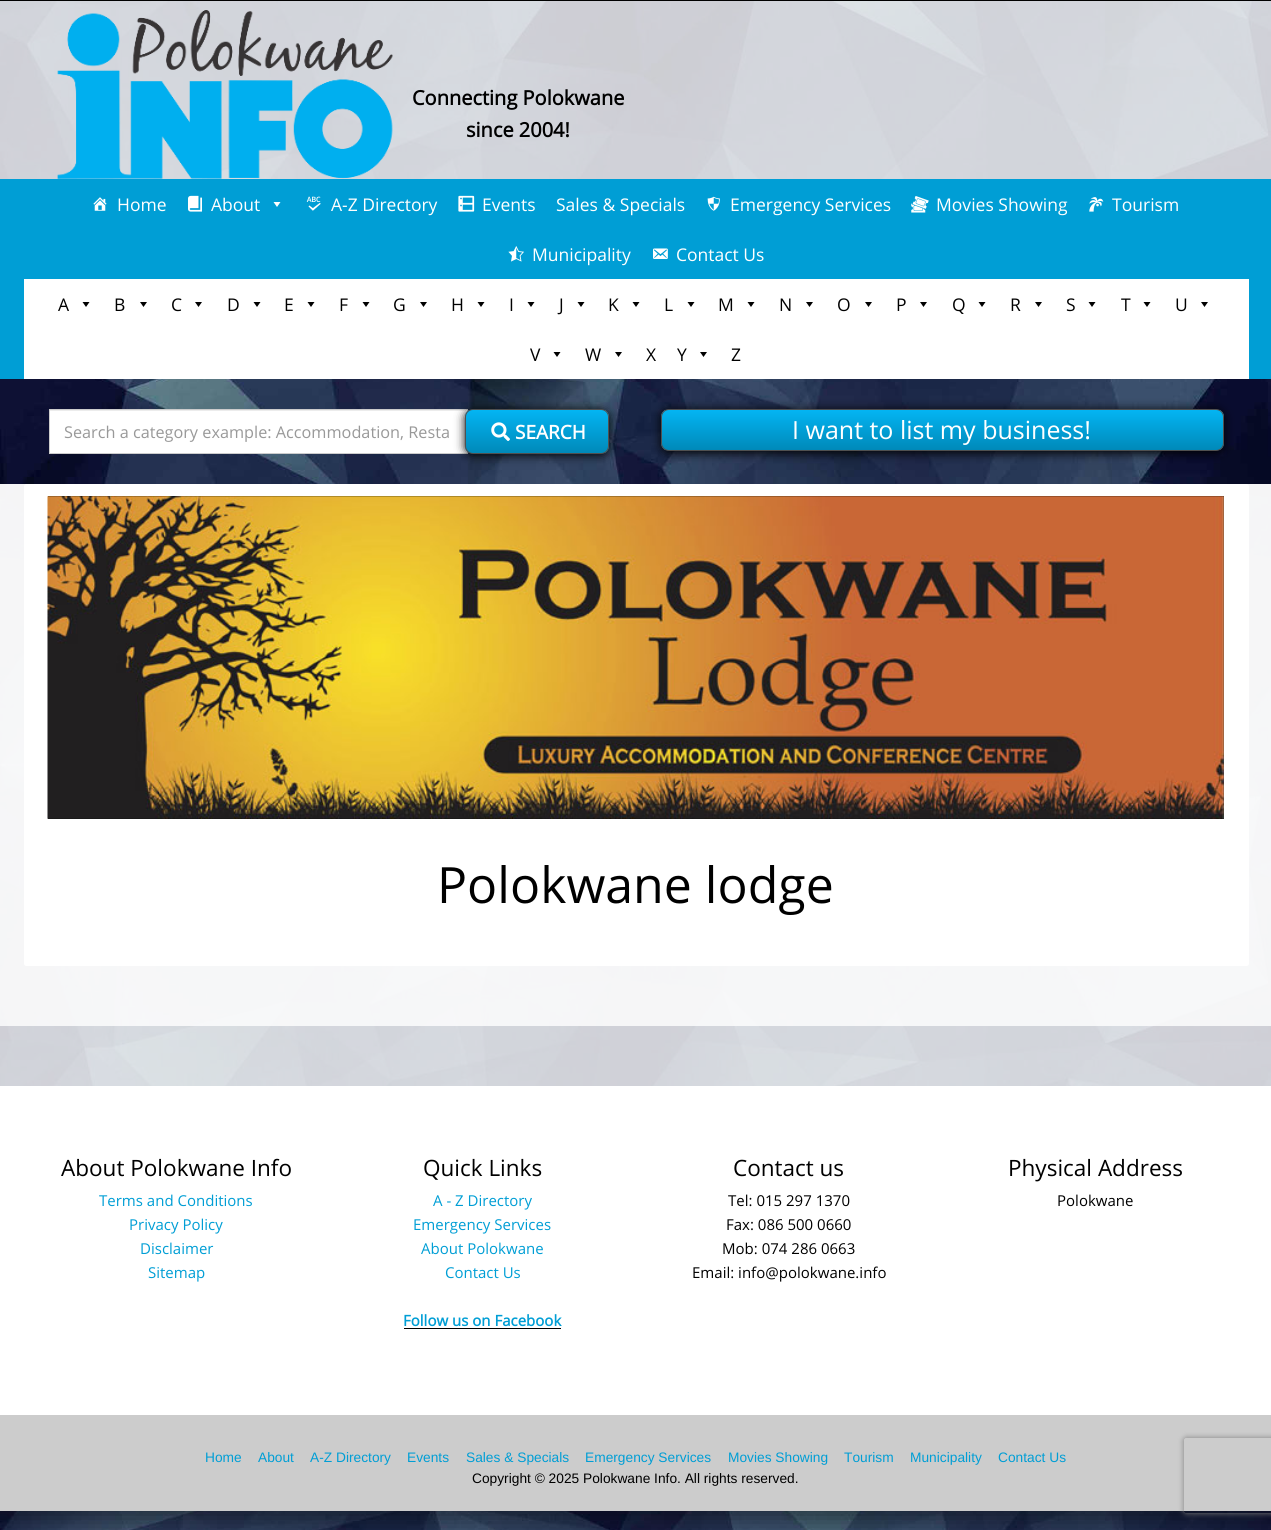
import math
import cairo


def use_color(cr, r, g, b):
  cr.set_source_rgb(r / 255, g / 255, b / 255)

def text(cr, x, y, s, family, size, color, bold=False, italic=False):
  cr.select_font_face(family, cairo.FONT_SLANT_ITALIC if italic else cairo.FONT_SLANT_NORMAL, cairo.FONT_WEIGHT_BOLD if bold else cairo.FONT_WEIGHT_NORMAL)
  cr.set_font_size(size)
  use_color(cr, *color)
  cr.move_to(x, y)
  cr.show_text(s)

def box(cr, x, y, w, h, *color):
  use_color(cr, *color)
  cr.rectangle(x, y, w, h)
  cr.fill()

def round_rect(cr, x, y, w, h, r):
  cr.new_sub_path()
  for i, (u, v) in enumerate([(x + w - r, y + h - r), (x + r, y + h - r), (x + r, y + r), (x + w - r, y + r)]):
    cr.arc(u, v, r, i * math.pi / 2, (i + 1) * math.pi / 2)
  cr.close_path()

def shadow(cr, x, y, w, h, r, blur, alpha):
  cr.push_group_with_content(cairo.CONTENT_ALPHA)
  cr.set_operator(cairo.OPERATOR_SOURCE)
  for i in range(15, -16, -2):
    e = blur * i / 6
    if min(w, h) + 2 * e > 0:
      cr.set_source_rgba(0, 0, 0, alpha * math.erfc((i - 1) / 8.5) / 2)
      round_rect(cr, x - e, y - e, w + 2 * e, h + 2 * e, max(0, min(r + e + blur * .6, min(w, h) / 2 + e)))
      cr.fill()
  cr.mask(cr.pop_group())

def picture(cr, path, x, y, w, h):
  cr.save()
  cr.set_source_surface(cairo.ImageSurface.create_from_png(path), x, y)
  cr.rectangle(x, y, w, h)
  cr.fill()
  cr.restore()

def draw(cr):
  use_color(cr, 255, 255, 255)
  cr.paint()
  picture(cr, "img_01.png", 0, 1, 1271, 1529)
  cr.save()
  cr.rectangle(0, 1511, 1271, 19)
  cr.clip()
  use_color(cr, 0, 0, 0)
  shadow(cr, -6, -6, 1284, 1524, 0, 12.5, 0.5)
  cr.restore()
  box(cr, 0, 0, 1271, 1, 0, 0, 0)
  cr.set_source_rgba(1, 1, 1, 0.8)
  cr.rectangle(0, 1, 1271, 178)
  cr.fill()
  picture(cr, "img_02.png", 57, 10, 336, 169)
  box(cr, 0, 179, 1271, 200, 0, 158, 213)
  picture(cr, "img_03.png", 93, 197, 14, 14)
  picture(cr, "img_04.png", 188, 195, 14, 17)
  use_color(cr, 255, 255, 255)
  cr.new_path()
  cr.move_to(280.5, 202)
  cr.line_to(277, 207)
  cr.line_to(273.5, 202)
  cr.close_path()
  cr.fill()
  picture(cr, "img_05.png", 306, 196, 15, 15)
  picture(cr, "img_06.png", 458, 195, 17, 17)
  picture(cr, "img_07.png", 707, 196, 13, 15)
  picture(cr, "img_08.png", 911, 196, 18, 17)
  picture(cr, "img_09.png", 1089, 197, 15, 15)
  picture(cr, "img_10.png", 508, 246, 16, 16)
  picture(cr, "img_11.png", 653, 248, 15, 11)
  box(cr, 24, 279, 1225, 100, 255, 255, 255)
  use_color(cr, 0, 0, 0)
  cr.new_path()
  cr.move_to(89.5, 302)
  cr.line_to(86, 307)
  cr.line_to(82.5, 302)
  cr.close_path()
  cr.fill()
  cr.new_path()
  cr.move_to(147, 302)
  cr.line_to(143.5, 307)
  cr.line_to(140, 302)
  cr.close_path()
  cr.fill()
  cr.new_path()
  cr.move_to(202, 302)
  cr.line_to(198.5, 307)
  cr.line_to(195, 302)
  cr.close_path()
  cr.fill()
  cr.new_path()
  cr.move_to(260.5, 302)
  cr.line_to(257, 307)
  cr.line_to(253.5, 302)
  cr.close_path()
  cr.fill()
  cr.new_path()
  cr.move_to(314.5, 302)
  cr.line_to(311, 307)
  cr.line_to(307.5, 302)
  cr.close_path()
  cr.fill()
  cr.new_path()
  cr.move_to(369.5, 302)
  cr.line_to(366, 307)
  cr.line_to(362.5, 302)
  cr.close_path()
  cr.fill()
  cr.new_path()
  cr.move_to(427, 302)
  cr.line_to(423.5, 307)
  cr.line_to(420, 302)
  cr.close_path()
  cr.fill()
  cr.new_path()
  cr.move_to(484.5, 302)
  cr.line_to(481, 307)
  cr.line_to(477.5, 302)
  cr.close_path()
  cr.fill()
  cr.new_path()
  cr.move_to(534.5, 302)
  cr.line_to(531, 307)
  cr.line_to(527.5, 302)
  cr.close_path()
  cr.fill()
  cr.new_path()
  cr.move_to(584.5, 302)
  cr.line_to(581, 307)
  cr.line_to(577.5, 302)
  cr.close_path()
  cr.fill()
  cr.new_path()
  cr.move_to(639.5, 302)
  cr.line_to(636, 307)
  cr.line_to(632.5, 302)
  cr.close_path()
  cr.fill()
  cr.new_path()
  cr.move_to(694.5, 302)
  cr.line_to(691, 307)
  cr.line_to(687.5, 302)
  cr.close_path()
  cr.fill()
  cr.new_path()
  cr.move_to(754.5, 302)
  cr.line_to(751, 307)
  cr.line_to(747.5, 302)
  cr.close_path()
  cr.fill()
  cr.new_path()
  cr.move_to(813, 302)
  cr.line_to(809.5, 307)
  cr.line_to(806, 302)
  cr.close_path()
  cr.fill()
  cr.new_path()
  cr.move_to(872, 302)
  cr.line_to(868.5, 307)
  cr.line_to(865, 302)
  cr.close_path()
  cr.fill()
  cr.new_path()
  cr.move_to(927, 302)
  cr.line_to(923.5, 307)
  cr.line_to(920, 302)
  cr.close_path()
  cr.fill()
  cr.new_path()
  cr.move_to(985.5, 302)
  cr.line_to(982, 307)
  cr.line_to(978.5, 302)
  cr.close_path()
  cr.fill()
  cr.new_path()
  cr.move_to(1042, 302)
  cr.line_to(1038.5, 307)
  cr.line_to(1035, 302)
  cr.close_path()
  cr.fill()
  cr.new_path()
  cr.move_to(1095.5, 302)
  cr.line_to(1092, 307)
  cr.line_to(1088.5, 302)
  cr.close_path()
  cr.fill()
  cr.new_path()
  cr.move_to(1150.5, 302)
  cr.line_to(1147, 307)
  cr.line_to(1143.5, 302)
  cr.close_path()
  cr.fill()
  cr.new_path()
  cr.move_to(1208, 302)
  cr.line_to(1204.5, 307)
  cr.line_to(1201, 302)
  cr.close_path()
  cr.fill()
  cr.new_path()
  cr.move_to(560.5, 352)
  cr.line_to(557, 357)
  cr.line_to(553.5, 352)
  cr.close_path()
  cr.fill()
  cr.new_path()
  cr.move_to(622, 352)
  cr.line_to(618.5, 357)
  cr.line_to(615, 352)
  cr.close_path()
  cr.fill()
  cr.new_path()
  cr.move_to(707, 352)
  cr.line_to(703.5, 357)
  cr.line_to(700, 352)
  cr.close_path()
  cr.fill()
  box(cr, 50, 410, 417, 43, 255, 255, 255)
  box(cr, 50, 410, 416, 1, 236, 236, 236)
  cr.rectangle(49.5, 409.5, 418, 44)
  use_color(cr, 204, 204, 204)
  cr.set_line_width(1)
  cr.stroke()
  use_color(cr, 0, 0, 0)
  shadow(cr, 465, 410, 144, 45, 8, 5, 1)
  cr.save()
  round_rect(cr, 465, 409, 144, 45, 8)
  cr.clip()
  gradient = cairo.LinearGradient(537, 410, 537, 453)
  gradient.add_color_stop_rgba(0, 0.012, 0.71, 0.953, 1)
  gradient.add_color_stop_rgba(1, 0, 0.537, 0.725, 1)
  cr.set_source(gradient)
  cr.rectangle(465, 410, 144, 43)
  cr.fill()
  cr.restore()
  round_rect(cr, 465.5, 409.5, 143, 44, 7.5)
  use_color(cr, 80, 80, 80)
  cr.stroke()
  picture(cr, "img_12.png", 491, 422, 19, 19)
  use_color(cr, 0, 0, 0)
  shadow(cr, 661, 410, 563, 43, 8, 5, 1)
  cr.save()
  round_rect(cr, 661, 409, 563, 42, 8)
  cr.clip()
  gradient = cairo.LinearGradient(943, 410, 943, 450)
  gradient.add_color_stop_rgba(0, 0.012, 0.71, 0.953, 1)
  gradient.add_color_stop_rgba(1, 0, 0.537, 0.725, 1)
  cr.set_source(gradient)
  cr.rectangle(661, 410, 563, 40)
  cr.fill()
  cr.restore()
  round_rect(cr, 661.5, 409.5, 562, 41, 7.5)
  use_color(cr, 80, 80, 80)
  cr.stroke()
  cr.set_source_rgba(1, 1, 1, 0.8)
  cr.rectangle(0, 484, 1271, 602)
  cr.fill()
  cr.rectangle(0, 484, 1271, 542)
  cr.fill()
  use_color(cr, 255, 255, 255)
  round_rect(cr, 24, 484, 1225, 482, 2.5)
  cr.fill()
  box(cr, 48, 496, 1176, 323, 8, 13, 7)
  picture(cr, "img_13.png", 47, 496, 1177, 323)
  box(cr, 0, 1086, 1271, 329, 255, 255, 255)
  box(cr, 404, 1328, 157, 1, 0, 0, 0)
  box(cr, 0, 1415, 1271, 96, 204, 204, 204)
  cr.save()
  cr.set_fill_rule(cairo.FILL_RULE_EVEN_ODD)
  cr.new_path()
  cr.move_to(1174, 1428)
  cr.line_to(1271, 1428)
  cr.line_to(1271, 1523)
  cr.line_to(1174, 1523)
  cr.close_path()
  cr.move_to(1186.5, 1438)
  cr.line_to(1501.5, 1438)
  cr.curve_to(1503, 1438, 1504, 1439, 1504, 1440.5)
  cr.line_to(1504, 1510.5)
  cr.curve_to(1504, 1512, 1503, 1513, 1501.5, 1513)
  cr.line_to(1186.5, 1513)
  cr.curve_to(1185, 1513, 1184, 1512, 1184, 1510.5)
  cr.line_to(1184, 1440.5)
  cr.curve_to(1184, 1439, 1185, 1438, 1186.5, 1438)
  cr.close_path()
  cr.clip()
  use_color(cr, 128, 128, 128)
  shadow(cr, 1184, 1438, 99, 75, 2.5, 3, 1)
  cr.restore()
  text(cr, 412, 105, "Connecting Polokwane", "Open Sans", 20, (0, 0, 0), bold=True)
  text(cr, 466, 137, "since 2004!", "Open Sans", 20, (0, 0, 0), bold=True)
  text(cr, 117, 211, "Home", "Open Sans", 17.5, (255, 255, 255))
  text(cr, 211, 211, "About", "Open Sans", 17.5, (255, 255, 255))
  text(cr, 331, 211, "A-Z Directory", "Open Sans", 17.5, (255, 255, 255))
  text(cr, 482, 211, "Events", "Open Sans", 17.5, (255, 255, 255))
  text(cr, 556, 211, "Sales & Specials", "Open Sans", 17.5, (255, 255, 255))
  text(cr, 730, 211, "Emergency Services", "Open Sans", 17.5, (255, 255, 255))
  text(cr, 936, 211, "Movies Showing", "Open Sans", 17.5, (255, 255, 255))
  text(cr, 1112, 211, "Tourism", "Open Sans", 17.5, (255, 255, 255))
  text(cr, 532, 261, "Municipality", "Open Sans", 17.5, (255, 255, 255))
  text(cr, 676, 261, "Contact Us", "Open Sans", 17.5, (255, 255, 255))
  text(cr, 58, 311, "A", "Open Sans", 17.5, (0, 0, 0))
  text(cr, 114, 311, "B", "Open Sans", 17.5, (0, 0, 0))
  text(cr, 171, 311, "C", "Open Sans", 17.5, (0, 0, 0))
  text(cr, 227, 311, "D", "Open Sans", 17.5, (0, 0, 0))
  text(cr, 284, 311, "E", "Open Sans", 17.5, (0, 0, 0))
  text(cr, 339, 311, "F", "Open Sans", 17.5, (0, 0, 0))
  text(cr, 393, 311, "G", "Open Sans", 17.5, (0, 0, 0))
  text(cr, 451, 311, "H", "Open Sans", 17.5, (0, 0, 0))
  text(cr, 509, 311, "I", "Open Sans", 17.5, (0, 0, 0))
  text(cr, 559, 311, "J", "Open Sans", 17.5, (0, 0, 0))
  text(cr, 608, 311, "K", "Open Sans", 17.5, (0, 0, 0))
  text(cr, 664, 311, "L", "Open Sans", 17.5, (0, 0, 0))
  text(cr, 718, 311, "M", "Open Sans", 17.5, (0, 0, 0))
  text(cr, 779, 311, "N", "Open Sans", 17.5, (0, 0, 0))
  text(cr, 837, 311, "O", "Open Sans", 17.5, (0, 0, 0))
  text(cr, 896, 311, "P", "Open Sans", 17.5, (0, 0, 0))
  text(cr, 952, 311, "Q", "Open Sans", 17.5, (0, 0, 0))
  text(cr, 1010, 311, "R", "Open Sans", 17.5, (0, 0, 0))
  text(cr, 1066, 311, "S", "Open Sans", 17.5, (0, 0, 0))
  text(cr, 1121, 311, "T", "Open Sans", 17.5, (0, 0, 0))
  text(cr, 1175, 311, "U", "Open Sans", 17.5, (0, 0, 0))
  text(cr, 530, 361, "V", "Open Sans", 17.5, (0, 0, 0))
  text(cr, 585, 361, "W", "Open Sans", 17.5, (0, 0, 0))
  text(cr, 646, 361, "X", "Open Sans", 17.5, (0, 0, 0))
  text(cr, 677, 361, "Y", "Open Sans", 17.5, (0, 0, 0))
  text(cr, 731, 361, "Z", "Open Sans", 17.5, (0, 0, 0))
  text(cr, 64, 438, "Search a category example: Accommodation, Resta", "Open Sans", 16.25, (153, 153, 153))
  text(cr, 515, 439, "SEARCH", "Open Sans", 19, (255, 255, 255), bold=True)
  text(cr, 792, 439, "I want to list my business!", "Open Sans", 25, (255, 255, 255))
  text(cr, 437, 903, "Polokwane lodge", "Open Sans", 50, (0, 0, 0))
  text(cr, 61, 1176, "About Polokwane Info", "Open Sans", 22.5, (0, 0, 0))
  text(cr, 99, 1206, "Terms and Conditions", "Open Sans", 15, (0, 158, 213))
  text(cr, 129, 1230, "Privacy Policy", "Open Sans", 15, (0, 158, 213))
  text(cr, 140, 1254, "Disclaimer", "Open Sans", 15, (0, 158, 213))
  text(cr, 148, 1278, "Sitemap", "Open Sans", 15, (0, 158, 213))
  text(cr, 423, 1176, "Quick Links", "Open Sans", 22.5, (0, 0, 0))
  text(cr, 433, 1206, "A - Z Directory", "Open Sans", 15, (0, 158, 213))
  text(cr, 413, 1230, "Emergency Services", "Open Sans", 15, (0, 158, 213))
  text(cr, 421, 1254, "About Polokwane", "Open Sans", 15, (0, 158, 213))
  text(cr, 445, 1278, "Contact Us", "Open Sans", 15, (0, 158, 213))
  text(cr, 403, 1326, "Follow us on Facebook", "Open Sans", 15, (0, 158, 213), bold=True)
  text(cr, 733, 1176, "Contact us", "Open Sans", 22.5, (0, 0, 0))
  text(cr, 728, 1206, "Tel: 015 297 1370", "Open Sans", 15, (0, 0, 0))
  text(cr, 726, 1230, "Fax: 086 500 0660", "Open Sans", 15, (0, 0, 0))
  text(cr, 722, 1254, "Mob: 074 286 0663", "Open Sans", 15, (0, 0, 0))
  text(cr, 692, 1278, "Email: info@polokwane.info", "Open Sans", 15, (0, 0, 0))
  text(cr, 1008, 1176, "Physical Address", "Open Sans", 22.5, (0, 0, 0))
  text(cr, 1057, 1206, "Polokwane", "Open Sans", 15, (0, 0, 0))
  text(cr, 205, 1462, "Home", "Liberation Sans", 13.75, (0, 158, 213))
  text(cr, 258, 1462, "About", "Liberation Sans", 13.75, (0, 158, 213))
  text(cr, 310, 1462, "A-Z Directory", "Liberation Sans", 13.75, (0, 158, 213))
  text(cr, 407, 1462, "Events", "Liberation Sans", 13.75, (0, 158, 213))
  text(cr, 466, 1462, "Sales & Specials", "Liberation Sans", 13.75, (0, 158, 213))
  text(cr, 585, 1462, "Emergency Services", "Liberation Sans", 13.75, (0, 158, 213))
  text(cr, 728, 1462, "Movies Showing", "Liberation Sans", 13.75, (0, 158, 213))
  text(cr, 844, 1462, "Tourism", "Liberation Sans", 13.75, (0, 158, 213))
  text(cr, 910, 1462, "Municipality", "Liberation Sans", 13.75, (0, 158, 213))
  text(cr, 998, 1462, "Contact Us", "Liberation Sans", 13.75, (0, 158, 213))
  text(cr, 472, 1483, "Copyright © 2025 Polokwane Info. All rights reserved.", "Liberation Sans", 13.75, (0, 0, 0))


surface = cairo.ImageSurface(cairo.FORMAT_RGB24, 1271, 1530)
cr = cairo.Context(surface)
options = cairo.FontOptions()
options.set_hint_metrics(cairo.HINT_METRICS_OFF)
options.set_hint_style(cairo.HINT_STYLE_NONE)
cr.set_font_options(options)
cr.set_miter_limit(4)
draw(cr)
surface.write_to_png("out.png")
